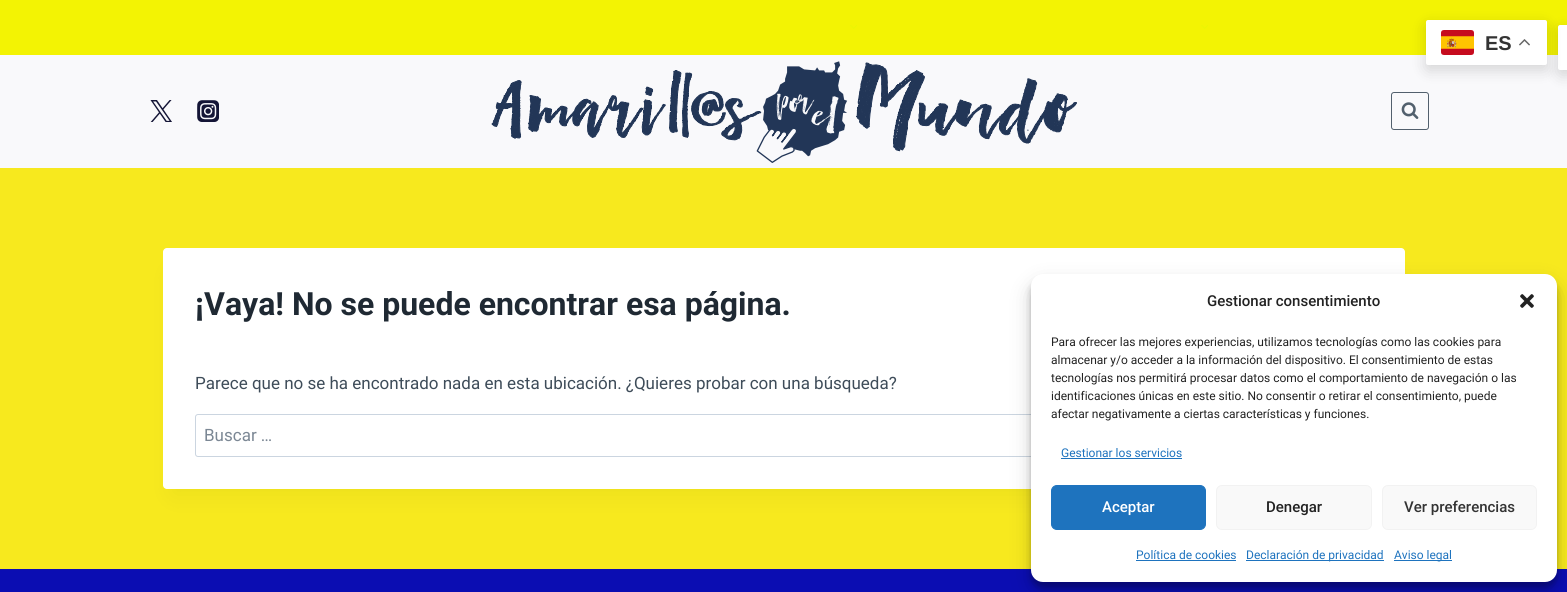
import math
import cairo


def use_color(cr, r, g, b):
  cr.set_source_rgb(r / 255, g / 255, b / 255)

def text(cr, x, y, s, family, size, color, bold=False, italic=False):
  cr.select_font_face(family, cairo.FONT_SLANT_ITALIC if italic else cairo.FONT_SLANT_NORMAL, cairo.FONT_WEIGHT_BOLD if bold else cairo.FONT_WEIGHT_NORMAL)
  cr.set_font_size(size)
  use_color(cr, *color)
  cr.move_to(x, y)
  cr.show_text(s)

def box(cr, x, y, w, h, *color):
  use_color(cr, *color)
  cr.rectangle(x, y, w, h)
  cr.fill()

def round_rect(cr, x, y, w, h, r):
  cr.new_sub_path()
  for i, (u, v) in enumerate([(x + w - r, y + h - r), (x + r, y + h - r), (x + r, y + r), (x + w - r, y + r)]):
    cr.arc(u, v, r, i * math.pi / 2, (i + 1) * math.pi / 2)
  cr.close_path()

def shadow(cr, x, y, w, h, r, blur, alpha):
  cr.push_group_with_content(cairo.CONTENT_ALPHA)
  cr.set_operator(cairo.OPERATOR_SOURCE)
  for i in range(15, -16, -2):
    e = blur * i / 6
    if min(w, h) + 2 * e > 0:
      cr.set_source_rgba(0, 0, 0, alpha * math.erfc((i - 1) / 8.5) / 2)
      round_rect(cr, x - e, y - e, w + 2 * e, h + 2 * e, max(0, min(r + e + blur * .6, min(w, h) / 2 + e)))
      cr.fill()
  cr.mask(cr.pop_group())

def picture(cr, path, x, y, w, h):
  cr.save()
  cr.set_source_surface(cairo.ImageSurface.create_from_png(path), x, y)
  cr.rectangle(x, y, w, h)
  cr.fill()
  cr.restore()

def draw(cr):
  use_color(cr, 247, 233, 30)
  cr.paint()
  box(cr, 0, 0, 1567, 55, 243, 243, 3)
  box(cr, 0, 55, 1567, 113, 249, 249, 251)
  use_color(cr, 0, 0, 0)
  shadow(cr, 1558, 30, 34, 45, 2, 7.5, 0.15)
  use_color(cr, 255, 255, 255)
  cr.new_path()
  cr.move_to(1560, 25)
  cr.line_to(1567, 25)
  cr.line_to(1567, 70)
  cr.line_to(1560, 70)
  cr.curve_to(1559, 70, 1558, 69, 1558, 68)
  cr.line_to(1558, 27)
  cr.curve_to(1558, 26, 1559, 25, 1560, 25)
  cr.close_path()
  cr.fill()
  round_rect(cr, 1391.5, 92.5, 37, 37, 2.5)
  use_color(cr, 82, 96, 109)
  cr.set_line_width(1)
  cr.stroke()
  use_color(cr, 0, 0, 0)
  shadow(cr, 1426, 25, 121, 45, 2, 7.5, 0.15)
  use_color(cr, 255, 255, 255)
  round_rect(cr, 1426, 20, 121, 45, 2)
  cr.fill()
  picture(cr, "img_01.png", 1441, 30, 33, 25)
  picture(cr, "img_02.png", 1519, 39, 11, 7)
  picture(cr, "img_03.png", 850, 25, 7, 4)
  picture(cr, "img_03.png", 1201, 25, 7, 4)
  picture(cr, "img_04.png", 150, 100, 22, 22)
  picture(cr, "img_05.png", 197, 100, 22, 22)
  picture(cr, "img_06.png", 491, 61, 586, 102)
  picture(cr, "img_07.png", 1401, 102, 18, 17)
  use_color(cr, 0, 0, 0)
  shadow(cr, 173, 273, 1222, 221, 0, 12.5, 0.05)
  use_color(cr, 255, 255, 255)
  round_rect(cr, 163, 248, 1242, 241, 4)
  cr.fill()
  round_rect(cr, 195.5, 414.5, 1177, 42, 2.5)
  use_color(cr, 203, 213, 224)
  cr.stroke()
  box(cr, 0, 569, 1567, 23, 11, 13, 178)
  use_color(cr, 0, 0, 0)
  shadow(cr, 1031, 280, 526, 308, 12, 3, 0.23)
  shadow(cr, 1031, 284, 526, 308, 12, 10, 0.19)
  use_color(cr, 255, 255, 255)
  round_rect(cr, 1031, 274, 526, 308, 12)
  cr.fill()
  picture(cr, "img_08.png", 1520, 294, 14, 14)
  box(cr, 1061, 458, 121, 1, 30, 115, 190)
  round_rect(cr, 1051.5, 485.5, 154, 44, 5.5)
  cr.fill_preserve()
  cr.stroke()
  use_color(cr, 249, 249, 249)
  round_rect(cr, 1216.5, 485.5, 155, 44, 5.5)
  cr.fill_preserve()
  use_color(cr, 242, 242, 242)
  cr.stroke()
  use_color(cr, 249, 249, 249)
  round_rect(cr, 1382.5, 485.5, 154, 44, 5.5)
  cr.fill_preserve()
  use_color(cr, 242, 242, 242)
  cr.stroke()
  box(cr, 1136, 560, 100, 1, 30, 115, 190)
  box(cr, 1246, 560, 138, 1, 30, 115, 190)
  box(cr, 1394, 560, 58, 1, 30, 115, 190)
  text(cr, 1485, 50, "ES", "Liberation Sans", 20, (51, 51, 51), bold=True)
  text(cr, 195, 315, "¡Vaya! No se puede encontrar esa página.", "Roboto", 32, (31, 41, 51), bold=True)
  text(cr, 195, 389, "Parece que no se ha encontrado nada en esta ubicación. ¿Quieres probar con una búsqueda?", "Roboto", 17, (62, 76, 89))
  text(cr, 204, 441, "Buscar …", "Roboto", 17, (123, 135, 148))
  text(cr, 1207, 306, "Gestionar consentimiento", "Roboto Medium", 15, (34, 34, 34))
  text(cr, 1051, 346, "Para ofrecer las mejores experiencias, utilizamos tecnologías como las cookies para", "Roboto", 12, (34, 34, 34))
  text(cr, 1051, 364, "almacenar y/o acceder a la información del dispositivo. El consentimiento de estas", "Roboto", 12, (34, 34, 34))
  text(cr, 1051, 382, "tecnologías nos permitirá procesar datos como el comportamiento de navegación o las", "Roboto", 12, (34, 34, 34))
  text(cr, 1051, 400, "identificaciones únicas en este sitio. No consentir o retirar el consentimiento, puede", "Roboto", 12, (34, 34, 34))
  text(cr, 1051, 418, "afectar negativamente a ciertas características y funciones.", "Roboto", 12, (34, 34, 34))
  text(cr, 1061, 457, "Gestionar los servicios", "Roboto", 12, (30, 115, 190))
  text(cr, 1102, 512, "Aceptar", "Roboto Medium", 15, (255, 255, 255))
  text(cr, 1266, 512, "Denegar", "Roboto Medium", 15, (34, 34, 34))
  text(cr, 1404, 512, "Ver preferencias", "Roboto Medium", 15, (51, 51, 51))
  text(cr, 1136, 559, "Política de cookies", "Roboto", 12, (30, 115, 190))
  text(cr, 1246, 559, "Declaración de privacidad", "Roboto", 12, (30, 115, 190))
  text(cr, 1394, 559, "Aviso legal", "Roboto", 12, (30, 115, 190))


surface = cairo.ImageSurface(cairo.FORMAT_RGB24, 1567, 592)
cr = cairo.Context(surface)
options = cairo.FontOptions()
options.set_hint_metrics(cairo.HINT_METRICS_OFF)
options.set_hint_style(cairo.HINT_STYLE_NONE)
cr.set_font_options(options)
cr.set_miter_limit(4)
draw(cr)
surface.write_to_png("out.png")
